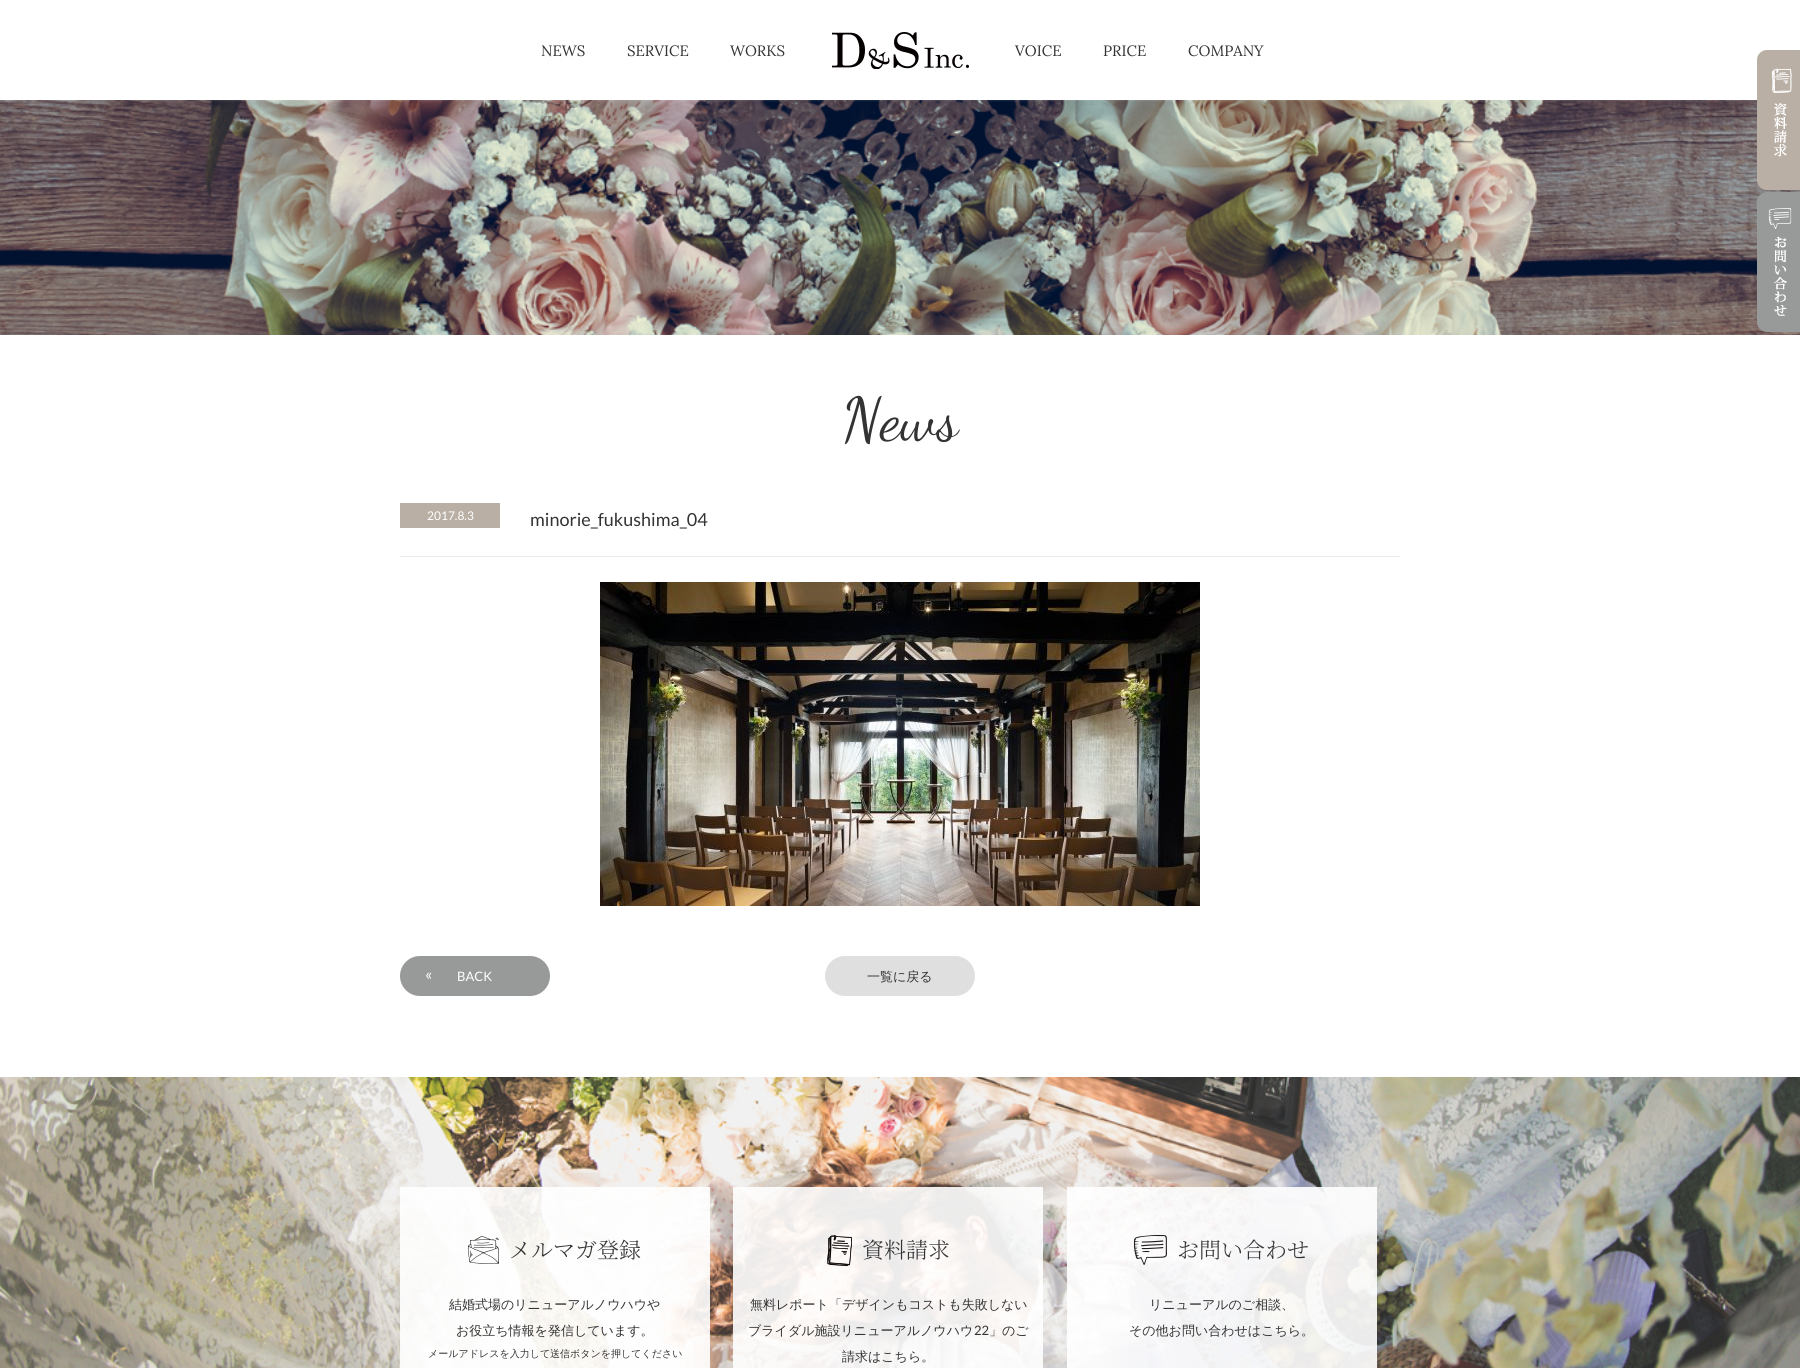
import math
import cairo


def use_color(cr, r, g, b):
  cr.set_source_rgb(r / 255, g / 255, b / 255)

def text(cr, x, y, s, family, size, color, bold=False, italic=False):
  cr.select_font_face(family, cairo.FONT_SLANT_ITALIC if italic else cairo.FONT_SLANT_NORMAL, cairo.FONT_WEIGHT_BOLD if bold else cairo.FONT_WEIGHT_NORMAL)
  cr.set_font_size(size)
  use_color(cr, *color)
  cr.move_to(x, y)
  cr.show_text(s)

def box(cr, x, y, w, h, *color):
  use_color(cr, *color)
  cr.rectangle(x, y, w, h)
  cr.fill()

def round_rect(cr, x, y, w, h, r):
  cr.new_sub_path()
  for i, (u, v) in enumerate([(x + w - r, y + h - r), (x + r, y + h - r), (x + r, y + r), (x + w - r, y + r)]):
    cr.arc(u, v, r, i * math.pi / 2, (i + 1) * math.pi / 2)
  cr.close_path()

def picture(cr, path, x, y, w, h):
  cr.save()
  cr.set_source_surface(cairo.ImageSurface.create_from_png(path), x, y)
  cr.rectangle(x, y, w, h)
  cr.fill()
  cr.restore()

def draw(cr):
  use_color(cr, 255, 255, 255)
  cr.paint()
  picture(cr, "img_01.png", 832, 32, 137, 37)
  picture(cr, "img_04.png", 0, 100, 1800, 235)
  picture(cr, "img_02.png", 1757, 50, 43, 140)
  picture(cr, "img_03.png", 1757, 192, 43, 140)
  box(cr, 400, 556, 1000, 1, 235, 235, 235)
  box(cr, 400, 503, 100, 25, 185, 175, 165)
  picture(cr, "img_05.png", 600, 582, 600, 324)
  use_color(cr, 152, 153, 153)
  round_rect(cr, 400, 956, 150, 40, 20)
  cr.fill()
  use_color(cr, 223, 223, 223)
  round_rect(cr, 825, 956, 150, 40, 20)
  cr.fill()
  picture(cr, "img_06.png", 0, 1077, 1800, 291)
  cr.set_source_rgba(1, 1, 1, 0.9)
  cr.rectangle(400, 1187, 310, 181)
  cr.fill()
  picture(cr, "img_07.png", 468, 1236, 31, 28)
  cr.rectangle(733, 1187, 310, 181)
  cr.fill()
  picture(cr, "img_08.png", 827, 1235, 25, 31)
  cr.rectangle(1067, 1187, 310, 181)
  cr.fill()
  picture(cr, "img_09.png", 1134, 1235, 33, 30)
  text(cr, 541, 56, "NEWS", "Lora", 15, (51, 51, 51))
  text(cr, 627, 56, "SERVICE", "Lora", 15, (51, 51, 51))
  text(cr, 730, 56, "WORKS", "Lora", 15, (51, 51, 51))
  text(cr, 1015, 56, "VOICE", "Lora", 15, (51, 51, 51))
  text(cr, 1103, 56, "PRICE", "Lora", 15, (51, 51, 51))
  text(cr, 1188, 56, "COMPANY", "Lora", 15, (51, 51, 51))
  text(cr, 842, 439, "News", "Dancing Script", 60, (51, 51, 51))
  text(cr, 427, 520, "2017.8.3", "Lato", 12, (255, 255, 255))
  text(cr, 530, 526, "minorie_fukushima_04", "Lato", 18, (51, 51, 51))
  text(cr, 425, 980, "«", "Lato", 16, (255, 255, 255))
  text(cr, 457, 981, "BACK", "Lato", 13, (255, 255, 255))
  text(cr, 867, 981, "一覧に戻る", "WenQuanYi Zen Hei Medium", 13, (51, 51, 51))
  text(cr, 509, 1258, "メルマガ登録", "Noto Serif JP ExtraLight", 22, (51, 51, 51))
  text(cr, 449, 1309, "結婚式場のリニューアルノウハウや", "WenQuanYi Zen Hei Medium", 13, (51, 51, 51))
  text(cr, 456, 1335, "お役立ち情報を発信しています。", "WenQuanYi Zen Hei Medium", 13, (51, 51, 51))
  text(cr, 428, 1357, "メールアドレスを入力して送信ボタンを押してください", "WenQuanYi Zen Hei Medium", 10, (51, 51, 51))
  text(cr, 862, 1258, "資料請求", "Noto Serif JP ExtraLight", 22, (51, 51, 51))
  text(cr, 750, 1309, "無料レポート「デザインもコストも失敗しない", "WenQuanYi Zen Hei Medium", 13, (51, 51, 51))
  text(cr, 748, 1335, "ブライダル施設リニューアルノウハウ", "WenQuanYi Zen Hei Medium", 13, (51, 51, 51))
  text(cr, 974, 1335, "22", "Lato", 13, (51, 51, 51))
  text(cr, 989, 1335, "」のご", "WenQuanYi Zen Hei Medium", 13, (51, 51, 51))
  text(cr, 842, 1361, "請求はこちら。", "WenQuanYi Zen Hei Medium", 13, (51, 51, 51))
  text(cr, 1177, 1258, "お問い合わせ", "Noto Serif JP ExtraLight", 22, (51, 51, 51))
  text(cr, 1149, 1309, "リニューアルのご相談、", "WenQuanYi Zen Hei Medium", 13, (51, 51, 51))
  text(cr, 1129, 1335, "その他お問い合わせはこちら。", "WenQuanYi Zen Hei Medium", 13, (51, 51, 51))


surface = cairo.ImageSurface(cairo.FORMAT_RGB24, 1800, 1368)
cr = cairo.Context(surface)
options = cairo.FontOptions()
options.set_hint_metrics(cairo.HINT_METRICS_OFF)
options.set_hint_style(cairo.HINT_STYLE_NONE)
cr.set_font_options(options)
cr.set_miter_limit(4)
draw(cr)
surface.write_to_png("out.png")
